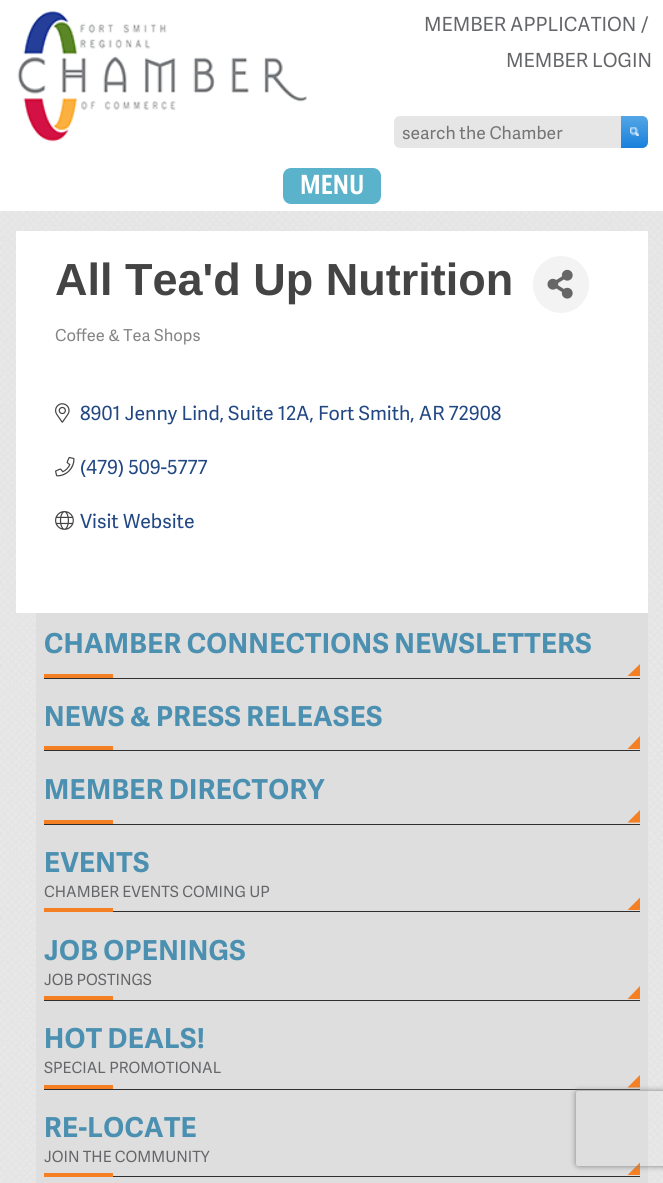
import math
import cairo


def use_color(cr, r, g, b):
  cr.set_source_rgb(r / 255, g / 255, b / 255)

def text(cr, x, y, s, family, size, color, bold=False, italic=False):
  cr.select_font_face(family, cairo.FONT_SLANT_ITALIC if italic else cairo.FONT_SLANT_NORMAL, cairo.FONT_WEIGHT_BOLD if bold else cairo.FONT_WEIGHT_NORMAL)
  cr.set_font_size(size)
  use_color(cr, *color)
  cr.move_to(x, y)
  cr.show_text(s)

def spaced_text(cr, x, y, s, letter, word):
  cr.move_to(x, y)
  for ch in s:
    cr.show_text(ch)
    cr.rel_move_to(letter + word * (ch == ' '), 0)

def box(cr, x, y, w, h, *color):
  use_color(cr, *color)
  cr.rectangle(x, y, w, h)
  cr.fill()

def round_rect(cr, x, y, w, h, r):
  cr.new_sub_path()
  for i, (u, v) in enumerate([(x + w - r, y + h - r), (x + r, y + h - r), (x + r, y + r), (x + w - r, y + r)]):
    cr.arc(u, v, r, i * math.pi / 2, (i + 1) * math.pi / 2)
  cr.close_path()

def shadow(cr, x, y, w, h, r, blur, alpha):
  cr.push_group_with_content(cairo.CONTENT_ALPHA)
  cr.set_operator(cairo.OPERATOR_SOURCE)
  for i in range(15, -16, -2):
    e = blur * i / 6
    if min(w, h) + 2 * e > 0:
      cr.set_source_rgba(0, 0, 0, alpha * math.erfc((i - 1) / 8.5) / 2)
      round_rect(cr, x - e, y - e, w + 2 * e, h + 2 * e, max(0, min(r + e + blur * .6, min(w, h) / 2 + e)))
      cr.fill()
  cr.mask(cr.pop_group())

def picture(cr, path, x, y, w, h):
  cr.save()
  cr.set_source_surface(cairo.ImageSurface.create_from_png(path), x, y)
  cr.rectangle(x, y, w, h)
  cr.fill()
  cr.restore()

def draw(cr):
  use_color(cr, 255, 255, 255)
  cr.paint()
  picture(cr, "img_01.png", 0, 211, 663, 972)
  picture(cr, "img_02.png", 17, 10, 290, 132)
  use_color(cr, 230, 230, 230)
  cr.new_path()
  cr.move_to(400, 116)
  cr.line_to(621, 116)
  cr.line_to(621, 148)
  cr.line_to(400, 148)
  cr.curve_to(396.5, 148, 394, 145.5, 394, 142)
  cr.line_to(394, 122)
  cr.curve_to(394, 118.5, 396.5, 116, 400, 116)
  cr.close_path()
  cr.fill()
  gradient = cairo.LinearGradient(634, 116, 634, 148)
  gradient.add_color_stop_rgba(0, 0.329, 0.651, 0.902, 1)
  gradient.add_color_stop_rgba(1, 0.09, 0.502, 0.859, 1)
  cr.set_source(gradient)
  cr.new_path()
  cr.move_to(621, 116)
  cr.line_to(642, 116)
  cr.curve_to(645.5, 116, 648, 118.5, 648, 122)
  cr.line_to(648, 142)
  cr.curve_to(648, 145.5, 645.5, 148, 642, 148)
  cr.line_to(621, 148)
  cr.close_path()
  cr.fill()
  picture(cr, "img_03.png", 630, 127, 9, 9)
  use_color(cr, 91, 179, 203)
  round_rect(cr, 283, 168, 98, 36, 8)
  cr.fill()
  box(cr, 16, 231, 632, 382, 255, 255, 255)
  use_color(cr, 243, 243, 243)
  round_rect(cr, 533, 256, 56, 57, 28)
  cr.fill()
  picture(cr, "img_04.png", 547, 269, 26, 30)
  picture(cr, "img_05.png", 55, 403, 15, 20)
  picture(cr, "img_06.png", 55, 456, 20, 21)
  picture(cr, "img_07.png", 55, 511, 19, 19)
  box(cr, 36, 613, 612, 570, 222, 222, 222)
  box(cr, 44, 678, 596, 1, 47, 47, 47)
  box(cr, 44, 674, 69, 4, 245, 128, 36)
  cr.new_path()
  cr.move_to(640, 664)
  cr.line_to(640, 676)
  cr.line_to(627.5, 676)
  cr.close_path()
  cr.fill()
  box(cr, 44, 750, 596, 1, 47, 47, 47)
  box(cr, 44, 746, 69, 4, 245, 128, 36)
  cr.new_path()
  cr.move_to(640, 736)
  cr.line_to(640, 749)
  cr.line_to(627.5, 749)
  cr.close_path()
  cr.fill()
  box(cr, 44, 824, 596, 1, 47, 47, 47)
  box(cr, 44, 820, 69, 4, 245, 128, 36)
  cr.new_path()
  cr.move_to(640, 810)
  cr.line_to(640, 822.5)
  cr.line_to(627.5, 822.5)
  cr.close_path()
  cr.fill()
  box(cr, 113, 911, 527, 1, 47, 47, 47)
  box(cr, 44, 908, 69, 4, 245, 128, 36)
  cr.new_path()
  cr.move_to(640, 897.5)
  cr.line_to(640, 910)
  cr.line_to(627.5, 910)
  cr.close_path()
  cr.fill()
  box(cr, 44, 1000, 596, 1, 47, 47, 47)
  box(cr, 44, 996, 69, 4, 245, 128, 36)
  cr.new_path()
  cr.move_to(640, 986)
  cr.line_to(640, 999)
  cr.line_to(627.5, 999)
  cr.close_path()
  cr.fill()
  box(cr, 44, 1089, 596, 1, 47, 47, 47)
  box(cr, 44, 1085, 69, 4, 245, 128, 36)
  cr.new_path()
  cr.move_to(640, 1075)
  cr.line_to(640, 1087.5)
  cr.line_to(627.5, 1087.5)
  cr.close_path()
  cr.fill()
  box(cr, 113, 1176, 527, 1, 47, 47, 47)
  box(cr, 44, 1173, 69, 4, 245, 128, 36)
  cr.new_path()
  cr.move_to(640, 1162.5)
  cr.line_to(640, 1175)
  cr.line_to(627.5, 1175)
  cr.close_path()
  cr.fill()
  cr.save()
  cr.set_fill_rule(cairo.FILL_RULE_EVEN_ODD)
  cr.new_path()
  cr.move_to(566, 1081)
  cr.line_to(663, 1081)
  cr.line_to(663, 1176)
  cr.line_to(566, 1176)
  cr.close_path()
  cr.move_to(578.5, 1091)
  cr.line_to(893.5, 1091)
  cr.curve_to(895, 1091, 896, 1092, 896, 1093.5)
  cr.line_to(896, 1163.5)
  cr.curve_to(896, 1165, 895, 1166, 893.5, 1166)
  cr.line_to(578.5, 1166)
  cr.curve_to(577, 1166, 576, 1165, 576, 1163.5)
  cr.line_to(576, 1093.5)
  cr.curve_to(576, 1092, 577, 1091, 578.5, 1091)
  cr.close_path()
  cr.clip()
  use_color(cr, 128, 128, 128)
  shadow(cr, 576, 1091, 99, 75, 2.5, 3, 1)
  cr.restore()
  text(cr, 424, 31, "MEMBER APPLICATION", "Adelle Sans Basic", 19.5, (101, 102, 105))
  text(cr, 641, 31, "/", "Adelle Sans Basic", 19.5, (101, 102, 105))
  text(cr, 506, 67, "MEMBER LOGIN", "Adelle Sans Basic", 19.5, (101, 102, 105))
  text(cr, 402, 139, "search the Chamber", "Adelle Sans Basic", 17.5, (117, 117, 117))
  text(cr, 300, 194, "MENU", "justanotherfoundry", 25.5, (255, 255, 255), bold=True)
  text(cr, 55, 295, "All Tea'd Up Nutrition", "Liberation Sans", 45, (68, 68, 68), bold=True)
  text(cr, 55, 341, "Coffee & Tea Shops", "Adelle Sans Basic", 16.5, (132, 133, 135))
  text(cr, 80, 420, "8901 Jenny Lind, Suite 12A, Fort Smith, AR 72908", "Adelle Sans Basic", 19.5, (34, 72, 132))
  text(cr, 80, 474, "(479) 509-5777", "Adelle Sans Basic", 19.5, (34, 72, 132))
  text(cr, 80, 528, "Visit Website", "Adelle Sans Basic", 19.5, (34, 72, 132))
  cr.select_font_face("Adelle Sans Basic", cairo.FONT_SLANT_NORMAL, cairo.FONT_WEIGHT_BOLD)
  cr.set_font_size(27.5)
  use_color(cr, 75, 144, 176)
  spaced_text(cr, 44, 653, "CHAMBER CONNECTIONS NEWSLETTERS", 0.35, 0)
  spaced_text(cr, 44, 726, "NEWS & PRESS RELEASES", 0.35, 0)
  spaced_text(cr, 44, 799, "MEMBER DIRECTORY", 0.35, 0)
  spaced_text(cr, 44, 872, "EVENTS", 0.35, 0)
  text(cr, 44, 897, "CHAMBER EVENTS COMING UP", "Adelle Sans Basic", 15.5, (101, 102, 105))
  cr.select_font_face("Adelle Sans Basic", cairo.FONT_SLANT_NORMAL, cairo.FONT_WEIGHT_BOLD)
  cr.set_font_size(27.5)
  use_color(cr, 75, 144, 176)
  spaced_text(cr, 44, 960, "JOB OPENINGS", 0.35, 0)
  text(cr, 44, 985, "JOB POSTINGS", "Adelle Sans Basic", 15.5, (101, 102, 105))
  cr.select_font_face("Adelle Sans Basic", cairo.FONT_SLANT_NORMAL, cairo.FONT_WEIGHT_BOLD)
  cr.set_font_size(27.5)
  use_color(cr, 75, 144, 176)
  spaced_text(cr, 44, 1048, "HOT DEALS!", 0.35, 0)
  text(cr, 44, 1073, "SPECIAL PROMOTIONAL", "Adelle Sans Basic", 15.5, (101, 102, 105))
  cr.select_font_face("Adelle Sans Basic", cairo.FONT_SLANT_NORMAL, cairo.FONT_WEIGHT_BOLD)
  cr.set_font_size(27.5)
  use_color(cr, 75, 144, 176)
  spaced_text(cr, 44, 1137, "RE-LOCATE", 0.35, 0)
  text(cr, 44, 1162, "JOIN THE COMMUNITY", "Adelle Sans Basic", 15.5, (101, 102, 105))


surface = cairo.ImageSurface(cairo.FORMAT_RGB24, 663, 1183)
cr = cairo.Context(surface)
options = cairo.FontOptions()
options.set_hint_metrics(cairo.HINT_METRICS_OFF)
options.set_hint_style(cairo.HINT_STYLE_NONE)
cr.set_font_options(options)
cr.set_miter_limit(4)
draw(cr)
surface.write_to_png("out.png")
